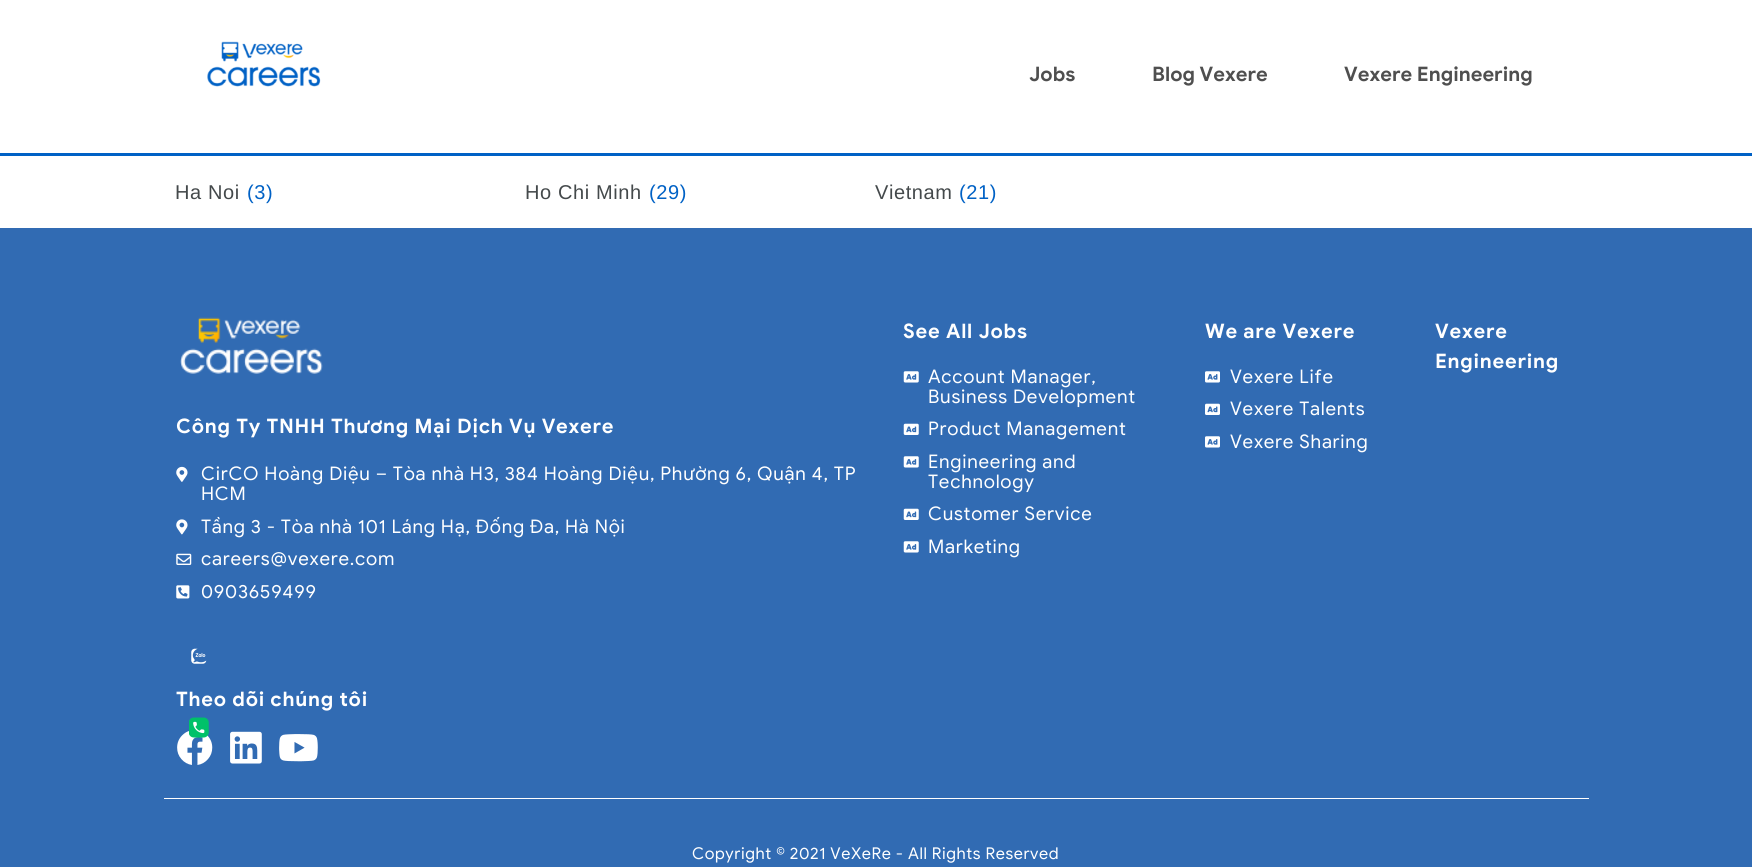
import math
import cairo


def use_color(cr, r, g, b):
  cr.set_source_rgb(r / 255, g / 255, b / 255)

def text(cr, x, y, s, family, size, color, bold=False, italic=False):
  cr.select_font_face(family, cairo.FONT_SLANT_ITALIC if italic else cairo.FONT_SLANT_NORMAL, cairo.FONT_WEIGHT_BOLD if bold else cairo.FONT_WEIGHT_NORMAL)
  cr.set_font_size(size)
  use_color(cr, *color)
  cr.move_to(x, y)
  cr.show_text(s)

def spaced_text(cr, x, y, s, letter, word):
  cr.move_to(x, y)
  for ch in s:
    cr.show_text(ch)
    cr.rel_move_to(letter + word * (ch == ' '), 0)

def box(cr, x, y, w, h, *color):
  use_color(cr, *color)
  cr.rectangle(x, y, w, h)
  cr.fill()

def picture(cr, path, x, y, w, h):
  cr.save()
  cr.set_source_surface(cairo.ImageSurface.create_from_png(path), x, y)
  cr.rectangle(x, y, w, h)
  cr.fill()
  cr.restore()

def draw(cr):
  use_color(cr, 255, 255, 255)
  cr.paint()
  picture(cr, "img_01.png", 207, 41, 114, 46)
  box(cr, 0, 153, 1752, 3, 0, 97, 197)
  box(cr, 0, 228, 1752, 639, 49, 107, 179)
  picture(cr, "img_02.png", 903, 371, 16, 12)
  picture(cr, "img_03.png", 903, 423, 16, 12)
  picture(cr, "img_02.png", 903, 456, 16, 12)
  picture(cr, "img_03.png", 903, 508, 16, 12)
  picture(cr, "img_02.png", 903, 541, 16, 12)
  picture(cr, "img_04.png", 1205, 371, 15, 12)
  picture(cr, "img_05.png", 1205, 403, 15, 12)
  picture(cr, "img_04.png", 1205, 436, 15, 12)
  picture(cr, "img_06.png", 180, 317, 143, 57)
  picture(cr, "img_07.png", 176, 466, 12, 16)
  picture(cr, "img_08.png", 176, 519, 12, 16)
  picture(cr, "img_09.png", 176, 553, 16, 12)
  picture(cr, "img_10.png", 176, 585, 14, 14)
  picture(cr, "img_11.png", 191, 648, 16, 16)
  picture(cr, "img_13.png", 177, 731, 36, 34)
  picture(cr, "img_12.png", 189, 717, 20, 21)
  picture(cr, "img_14.png", 230, 731, 32, 33)
  picture(cr, "img_15.png", 279, 734, 39, 28)
  box(cr, 164, 798, 1425, 1, 255, 255, 255)
  text(cr, 1029, 81, "Jobs", "Google Sans", 20, (79, 79, 79), bold=True)
  text(cr, 1152, 81, "Blog Vexere", "Google Sans", 20, (79, 79, 79), bold=True)
  text(cr, 1344, 81, "Vexere Engineering", "Google Sans", 20, (79, 79, 79), bold=True)
  cr.select_font_face("Liberation Sans")
  use_color(cr, 68, 73, 75)
  spaced_text(cr, 175, 199, "Ha Noi", 0.6, 0)
  use_color(cr, 0, 97, 197)
  spaced_text(cr, 247, 199, "(3)", 0.6, 0)
  use_color(cr, 68, 73, 75)
  spaced_text(cr, 525, 199, "Ho Chi Minh", 0.6, 0)
  use_color(cr, 0, 97, 197)
  spaced_text(cr, 649, 199, "(29)", 0.6, 0)
  use_color(cr, 68, 73, 75)
  spaced_text(cr, 875, 199, "Vietnam", 0.6, 0)
  use_color(cr, 0, 97, 197)
  spaced_text(cr, 959, 199, "(21)", 0.6, 0)
  cr.select_font_face("Google Sans", cairo.FONT_SLANT_NORMAL, cairo.FONT_WEIGHT_BOLD)
  use_color(cr, 255, 255, 255)
  spaced_text(cr, 903, 338, "See All Jobs", 0.75, 0)
  cr.select_font_face("Google Sans")
  cr.set_font_size(18.75)
  spaced_text(cr, 928, 383, "Account Manager,", 0.75, 0)
  spaced_text(cr, 928, 403, "Business Development", 0.75, 0)
  spaced_text(cr, 928, 435, "Product Management", 0.75, 0)
  spaced_text(cr, 928, 468, "Engineering and", 0.75, 0)
  spaced_text(cr, 928, 488, "Technology", 0.75, 0)
  spaced_text(cr, 928, 520, "Customer Service", 0.75, 0)
  spaced_text(cr, 928, 553, "Marketing", 0.75, 0)
  cr.select_font_face("Google Sans", cairo.FONT_SLANT_NORMAL, cairo.FONT_WEIGHT_BOLD)
  cr.set_font_size(20)
  spaced_text(cr, 1205, 338, "We are Vexere", 0.75, 0)
  cr.select_font_face("Google Sans")
  cr.set_font_size(18.75)
  spaced_text(cr, 1230, 383, "Vexere Life", 0.75, 0)
  spaced_text(cr, 1230, 415, "Vexere Talents", 0.75, 0)
  spaced_text(cr, 1230, 448, "Vexere Sharing", 0.75, 0)
  cr.select_font_face("Google Sans", cairo.FONT_SLANT_NORMAL, cairo.FONT_WEIGHT_BOLD)
  cr.set_font_size(20)
  spaced_text(cr, 1435, 338, "Vexere", 0.75, 0)
  spaced_text(cr, 1435, 368, "Engineering", 0.75, 0)
  spaced_text(cr, 176, 433, "Công Ty TNHH Thương Mại Dịch Vụ Vexere", 0.75, 0)
  cr.select_font_face("Google Sans")
  cr.set_font_size(18.75)
  spaced_text(cr, 201, 480, "CirCO Hoàng Diệu – Tòa nhà H3, 384 Hoàng Diệu, Phường 6, Quận 4, TP", 0.75, 0)
  spaced_text(cr, 201, 500, "HCM", 0.75, 0)
  spaced_text(cr, 201, 533, "Tầng 3 - Tòa nhà 101 Láng Hạ, Đống Đa, Hà Nội", 0.75, 0)
  spaced_text(cr, 201, 565, "careers@vexere.com", 0.75, 0)
  spaced_text(cr, 201, 598, "0903659499", 0.75, 0)
  cr.select_font_face("Google Sans", cairo.FONT_SLANT_NORMAL, cairo.FONT_WEIGHT_BOLD)
  cr.set_font_size(20)
  spaced_text(cr, 176, 706, "Theo dõi chúng tôi", 0.75, 0)
  cr.select_font_face("Google Sans")
  cr.set_font_size(16.25)
  spaced_text(cr, 692, 859, "Copyright © 2021 VeXeRe - All Rights Reserved", 0.6, 0)


surface = cairo.ImageSurface(cairo.FORMAT_RGB24, 1752, 867)
cr = cairo.Context(surface)
options = cairo.FontOptions()
options.set_hint_metrics(cairo.HINT_METRICS_OFF)
options.set_hint_style(cairo.HINT_STYLE_NONE)
cr.set_font_options(options)
cr.set_miter_limit(4)
draw(cr)
surface.write_to_png("out.png")
